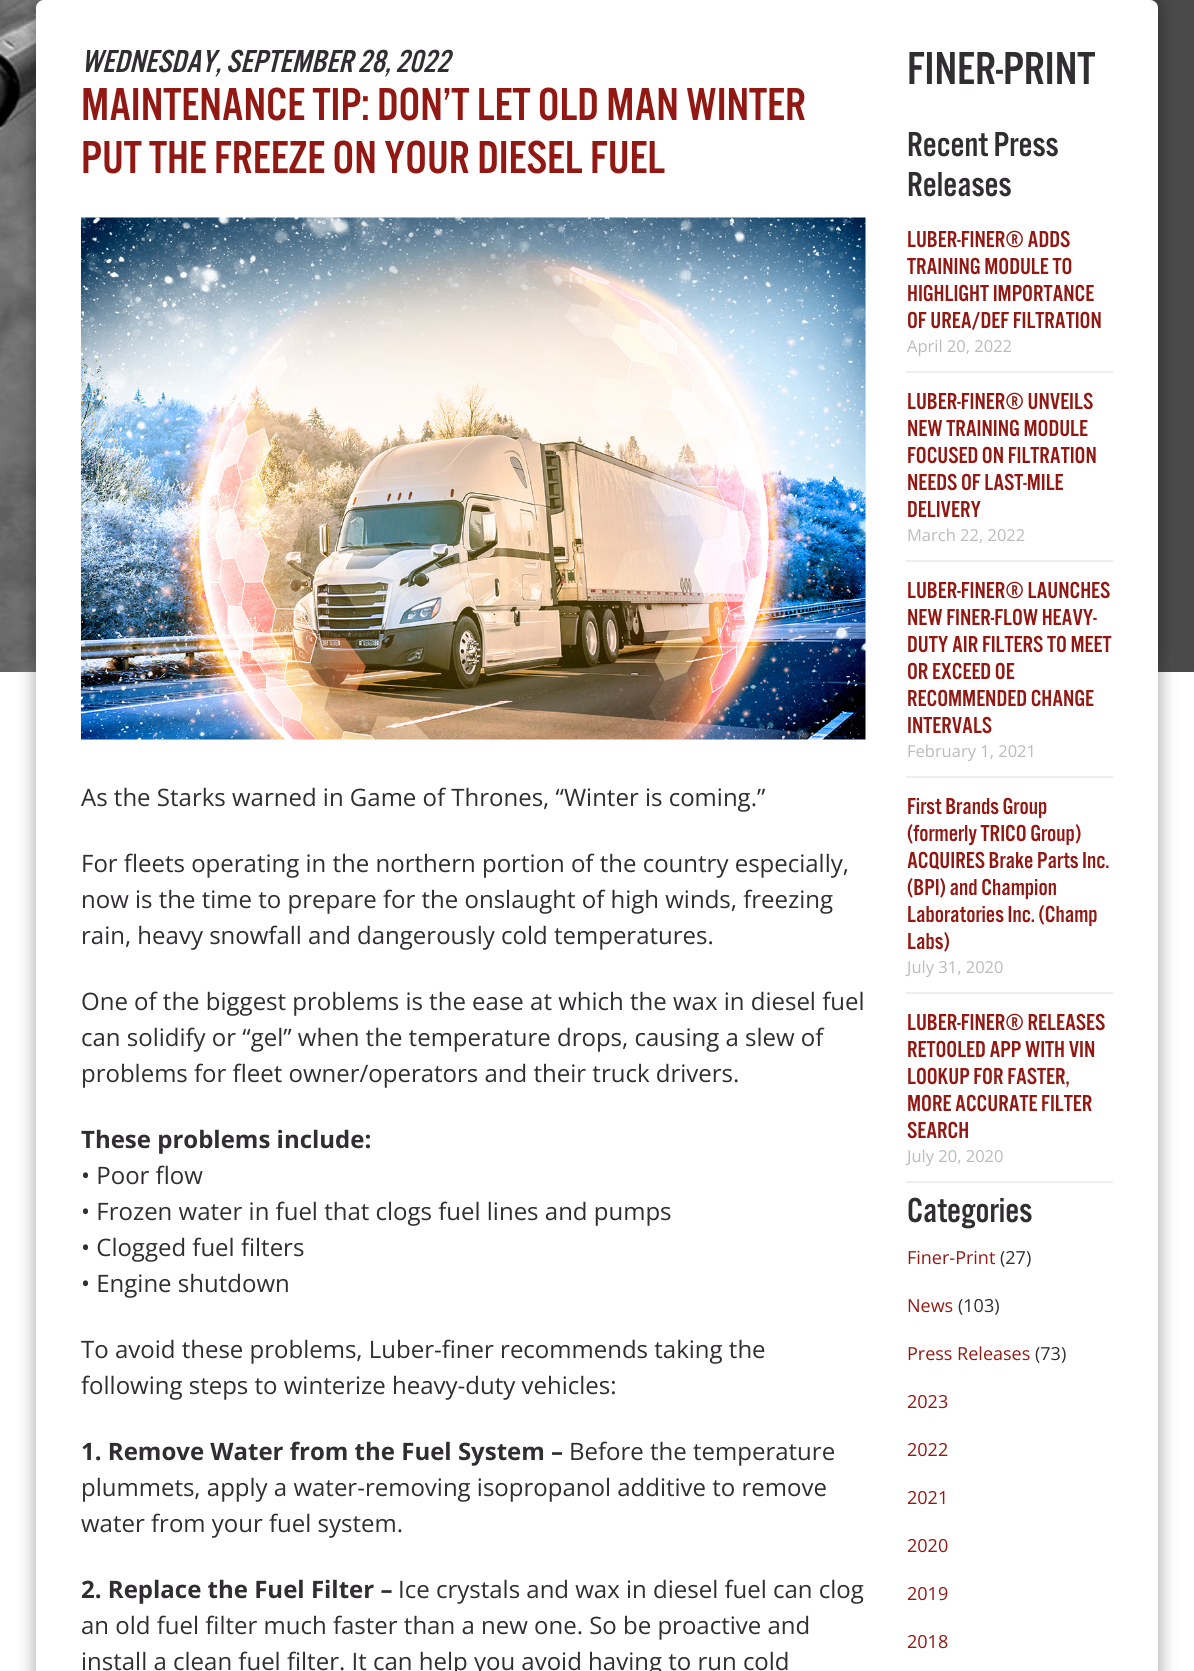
import math
import cairo


def use_color(cr, r, g, b):
  cr.set_source_rgb(r / 255, g / 255, b / 255)

def text(cr, x, y, s, family, size, color, bold=False, italic=False):
  cr.select_font_face(family, cairo.FONT_SLANT_ITALIC if italic else cairo.FONT_SLANT_NORMAL, cairo.FONT_WEIGHT_BOLD if bold else cairo.FONT_WEIGHT_NORMAL)
  cr.set_font_size(size)
  use_color(cr, *color)
  cr.move_to(x, y)
  cr.show_text(s)

def box(cr, x, y, w, h, *color):
  use_color(cr, *color)
  cr.rectangle(x, y, w, h)
  cr.fill()

def round_rect(cr, x, y, w, h, r):
  cr.new_sub_path()
  for i, (u, v) in enumerate([(x + w - r, y + h - r), (x + r, y + h - r), (x + r, y + r), (x + w - r, y + r)]):
    cr.arc(u, v, r, i * math.pi / 2, (i + 1) * math.pi / 2)
  cr.close_path()

def shadow(cr, x, y, w, h, r, blur, alpha):
  cr.push_group_with_content(cairo.CONTENT_ALPHA)
  cr.set_operator(cairo.OPERATOR_SOURCE)
  for i in range(15, -16, -2):
    e = blur * i / 6
    if min(w, h) + 2 * e > 0:
      cr.set_source_rgba(0, 0, 0, alpha * math.erfc((i - 1) / 8.5) / 2)
      round_rect(cr, x - e, y - e, w + 2 * e, h + 2 * e, max(0, min(r + e + blur * .6, min(w, h) / 2 + e)))
      cr.fill()
  cr.mask(cr.pop_group())

def picture(cr, path, x, y, w, h):
  cr.save()
  cr.set_source_surface(cairo.ImageSurface.create_from_png(path), x, y)
  cr.rectangle(x, y, w, h)
  cr.fill()
  cr.restore()

def draw(cr):
  use_color(cr, 255, 255, 255)
  cr.paint()
  picture(cr, "img_01.png", 0, 0, 1194, 672)
  use_color(cr, 0, 0, 0)
  shadow(cr, 32, -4, 1131, 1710, 12, 7.5, 0.25)
  use_color(cr, 255, 255, 255)
  round_rect(cr, 36, 0, 1122, 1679, 8)
  cr.fill()
  picture(cr, "img_02.png", 81, 217, 785, 523)
  box(cr, 906, 371, 207, 2, 238, 238, 238)
  box(cr, 906, 560, 207, 2, 238, 238, 238)
  box(cr, 906, 776, 207, 2, 238, 238, 238)
  box(cr, 906, 992, 207, 2, 238, 238, 238)
  box(cr, 906, 1181, 207, 2, 238, 238, 238)
  text(cr, 81, 72, "WEDNESDAY, SEPTEMBER 28, 2022", "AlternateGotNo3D", 33, (48, 46, 49), italic=True)
  text(cr, 81, 120, "MAINTENANCE TIP: DON’T LET OLD MAN WINTER", "AlternateGotNo3D", 48, (146, 25, 19))
  text(cr, 81, 173, "PUT THE FREEZE ON YOUR DIESEL FUEL", "AlternateGotNo3D", 48, (146, 25, 19))
  text(cr, 81, 806, "As the Starks warned in Game of Thrones, “Winter is coming.”", "Open Sans", 24, (48, 46, 49))
  text(cr, 81, 872, "For fleets operating in the northern portion of the country especially,", "Open Sans", 24, (48, 46, 49))
  text(cr, 81, 908, "now is the time to prepare for the onslaught of high winds, freezing", "Open Sans", 24, (48, 46, 49))
  text(cr, 81, 944, "rain, heavy snowfall and dangerously cold temperatures.", "Open Sans", 24, (48, 46, 49))
  text(cr, 81, 1010, "One of the biggest problems is the ease at which the wax in diesel fuel", "Open Sans", 24, (48, 46, 49))
  text(cr, 81, 1046, "can solidify or “gel” when the temperature drops, causing a slew of", "Open Sans", 24, (48, 46, 49))
  text(cr, 81, 1082, "problems for fleet owner/operators and their truck drivers.", "Open Sans", 24, (48, 46, 49))
  text(cr, 81, 1148, "These problems include:", "Open Sans", 24, (48, 46, 49), bold=True)
  text(cr, 81, 1184, "• Poor flow", "Open Sans", 24, (48, 46, 49))
  text(cr, 81, 1220, "• Frozen water in fuel that clogs fuel lines and pumps", "Open Sans", 24, (48, 46, 49))
  text(cr, 81, 1256, "• Clogged fuel filters", "Open Sans", 24, (48, 46, 49))
  text(cr, 81, 1292, "• Engine shutdown", "Open Sans", 24, (48, 46, 49))
  text(cr, 81, 1358, "To avoid these problems, Luber-finer recommends taking the", "Open Sans", 24, (48, 46, 49))
  text(cr, 81, 1394, "following steps to winterize heavy-duty vehicles:", "Open Sans", 24, (48, 46, 49))
  text(cr, 81, 1460, "1. Remove Water from the Fuel System –", "Open Sans", 24, (48, 46, 49), bold=True)
  text(cr, 569, 1460, "Before the temperature", "Open Sans", 24, (48, 46, 49))
  text(cr, 81, 1496, "plummets, apply a water-removing isopropanol additive to remove", "Open Sans", 24, (48, 46, 49))
  text(cr, 81, 1532, "water from your fuel system.", "Open Sans", 24, (48, 46, 49))
  text(cr, 81, 1598, "2. Replace the Fuel Filter –", "Open Sans", 24, (48, 46, 49), bold=True)
  text(cr, 398, 1598, "Ice crystals and wax in diesel fuel can clog", "Open Sans", 24, (48, 46, 49))
  text(cr, 81, 1634, "an old fuel filter much faster than a new one. So be proactive and", "Open Sans", 24, (48, 46, 49))
  text(cr, 81, 1670, "install a clean fuel filter. It can help you avoid having to run cold", "Open Sans", 24, (48, 46, 49))
  text(cr, 907, 84, "FINER-PRINT", "AlternateGotNo3D", 48, (48, 46, 49))
  text(cr, 907, 156, "Recent Press", "AlternateGotNo3D", 36, (48, 46, 49))
  text(cr, 907, 196, "Releases", "AlternateGotNo3D", 36, (48, 46, 49))
  text(cr, 907, 247, "LUBER-FINER® ADDS", "AlternateGotNo3D", 24, (146, 25, 19))
  text(cr, 907, 274, "TRAINING MODULE TO", "AlternateGotNo3D", 24, (146, 25, 19))
  text(cr, 907, 301, "HIGHLIGHT IMPORTANCE", "AlternateGotNo3D", 24, (146, 25, 19))
  text(cr, 907, 328, "OF UREA/DEF FILTRATION", "AlternateGotNo3D", 24, (146, 25, 19))
  text(cr, 907, 352, "April 20, 2022", "Open Sans", 16.5, (187, 187, 187))
  text(cr, 907, 409, "LUBER-FINER® UNVEILS", "AlternateGotNo3D", 24, (146, 25, 19))
  text(cr, 907, 436, "NEW TRAINING MODULE", "AlternateGotNo3D", 24, (146, 25, 19))
  text(cr, 907, 463, "FOCUSED ON FILTRATION", "AlternateGotNo3D", 24, (146, 25, 19))
  text(cr, 907, 490, "NEEDS OF LAST-MILE", "AlternateGotNo3D", 24, (146, 25, 19))
  text(cr, 907, 517, "DELIVERY", "AlternateGotNo3D", 24, (146, 25, 19))
  text(cr, 907, 541, "March 22, 2022", "Open Sans", 16.5, (187, 187, 187))
  text(cr, 907, 598, "LUBER-FINER® LAUNCHES", "AlternateGotNo3D", 24, (146, 25, 19))
  text(cr, 907, 625, "NEW FINER-FLOW HEAVY-", "AlternateGotNo3D", 24, (146, 25, 19))
  text(cr, 907, 652, "DUTY AIR FILTERS TO MEET", "AlternateGotNo3D", 24, (146, 25, 19))
  text(cr, 907, 679, "OR EXCEED OE", "AlternateGotNo3D", 24, (146, 25, 19))
  text(cr, 907, 706, "RECOMMENDED CHANGE", "AlternateGotNo3D", 24, (146, 25, 19))
  text(cr, 907, 733, "INTERVALS", "AlternateGotNo3D", 24, (146, 25, 19))
  text(cr, 907, 757, "February 1, 2021", "Open Sans", 16.5, (187, 187, 187))
  text(cr, 907, 814, "First Brands Group", "AlternateGotNo3D", 24, (146, 25, 19))
  text(cr, 907, 841, "(formerly TRICO Group)", "AlternateGotNo3D", 24, (146, 25, 19))
  text(cr, 907, 868, "ACQUIRES Brake Parts Inc.", "AlternateGotNo3D", 24, (146, 25, 19))
  text(cr, 907, 895, "(BPI) and Champion", "AlternateGotNo3D", 24, (146, 25, 19))
  text(cr, 907, 922, "Laboratories Inc. (Champ", "AlternateGotNo3D", 24, (146, 25, 19))
  text(cr, 907, 949, "Labs)", "AlternateGotNo3D", 24, (146, 25, 19))
  text(cr, 907, 973, "July 31, 2020", "Open Sans", 16.5, (187, 187, 187))
  text(cr, 907, 1030, "LUBER-FINER® RELEASES", "AlternateGotNo3D", 24, (146, 25, 19))
  text(cr, 907, 1057, "RETOOLED APP WITH VIN", "AlternateGotNo3D", 24, (146, 25, 19))
  text(cr, 907, 1084, "LOOKUP FOR FASTER,", "AlternateGotNo3D", 24, (146, 25, 19))
  text(cr, 907, 1111, "MORE ACCURATE FILTER", "AlternateGotNo3D", 24, (146, 25, 19))
  text(cr, 907, 1138, "SEARCH", "AlternateGotNo3D", 24, (146, 25, 19))
  text(cr, 907, 1162, "July 20, 2020", "Open Sans", 16.5, (187, 187, 187))
  text(cr, 907, 1222, "Categories", "AlternateGotNo3D", 36, (48, 46, 49))
  text(cr, 907, 1264, "Finer-Print", "Open Sans", 18, (146, 25, 19))
  text(cr, 1000, 1264, "(27)", "Open Sans", 18, (48, 46, 49))
  text(cr, 907, 1312, "News", "Open Sans", 18, (146, 25, 19))
  text(cr, 958, 1312, "(103)", "Open Sans", 18, (48, 46, 49))
  text(cr, 907, 1360, "Press Releases", "Open Sans", 18, (146, 25, 19))
  text(cr, 1035, 1360, "(73)", "Open Sans", 18, (48, 46, 49))
  text(cr, 907, 1408, "2023", "Open Sans", 18, (146, 25, 19))
  text(cr, 907, 1456, "2022", "Open Sans", 18, (146, 25, 19))
  text(cr, 907, 1504, "2021", "Open Sans", 18, (146, 25, 19))
  text(cr, 907, 1552, "2020", "Open Sans", 18, (146, 25, 19))
  text(cr, 907, 1600, "2019", "Open Sans", 18, (146, 25, 19))
  text(cr, 907, 1648, "2018", "Open Sans", 18, (146, 25, 19))


surface = cairo.ImageSurface(cairo.FORMAT_RGB24, 1194, 1671)
cr = cairo.Context(surface)
options = cairo.FontOptions()
options.set_hint_metrics(cairo.HINT_METRICS_OFF)
options.set_hint_style(cairo.HINT_STYLE_NONE)
cr.set_font_options(options)
cr.set_miter_limit(4)
draw(cr)
surface.write_to_png("out.png")
